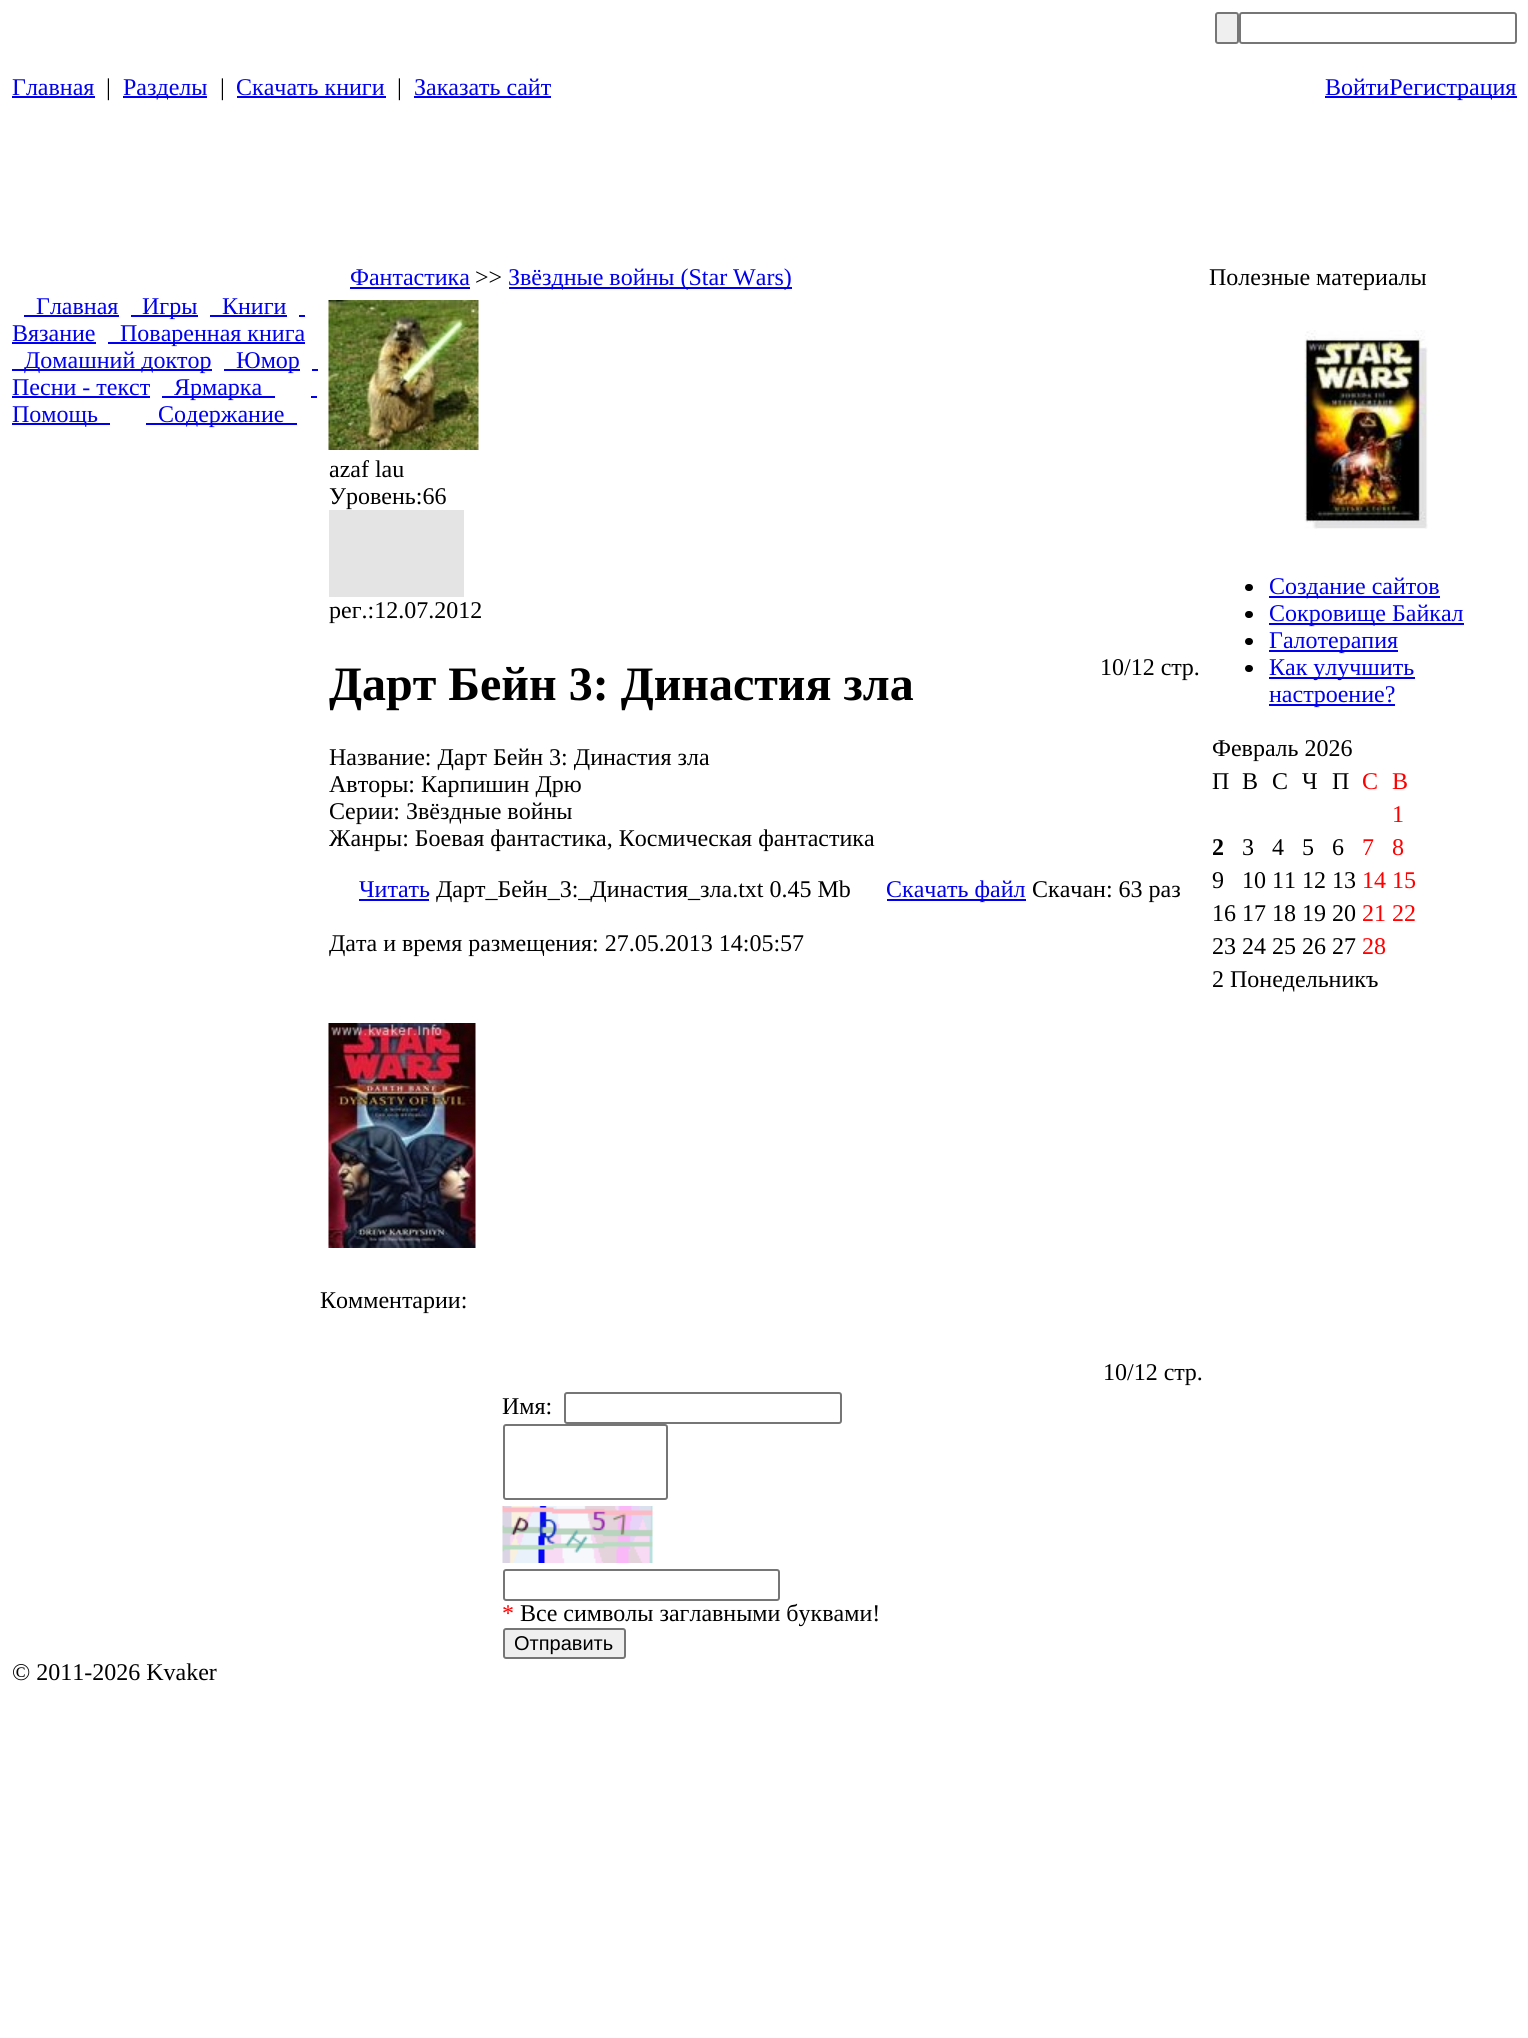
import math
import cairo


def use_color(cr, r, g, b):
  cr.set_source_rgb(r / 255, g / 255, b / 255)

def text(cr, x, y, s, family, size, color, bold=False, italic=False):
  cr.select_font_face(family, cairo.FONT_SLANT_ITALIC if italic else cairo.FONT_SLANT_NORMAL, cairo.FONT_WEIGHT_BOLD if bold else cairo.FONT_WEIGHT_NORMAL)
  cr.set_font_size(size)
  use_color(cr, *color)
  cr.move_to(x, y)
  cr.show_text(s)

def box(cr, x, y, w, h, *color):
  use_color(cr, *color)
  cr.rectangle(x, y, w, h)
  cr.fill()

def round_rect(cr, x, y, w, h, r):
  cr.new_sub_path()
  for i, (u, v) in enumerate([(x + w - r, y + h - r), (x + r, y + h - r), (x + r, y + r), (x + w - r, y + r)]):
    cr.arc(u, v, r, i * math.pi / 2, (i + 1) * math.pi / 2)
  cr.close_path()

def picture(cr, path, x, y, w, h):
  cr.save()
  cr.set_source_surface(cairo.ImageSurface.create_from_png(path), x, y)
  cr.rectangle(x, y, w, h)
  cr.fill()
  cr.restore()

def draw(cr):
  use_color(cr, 255, 255, 255)
  cr.paint()
  use_color(cr, 239, 239, 239)
  round_rect(cr, 1216, 13, 22, 30, 2)
  cr.fill_preserve()
  use_color(cr, 118, 118, 118)
  cr.stroke()
  round_rect(cr, 1240, 13, 276, 30, 2)
  cr.stroke()
  box(cr, 12, 96, 83, 2, 0, 0, 238)
  box(cr, 123, 96, 84, 2, 0, 0, 238)
  box(cr, 237, 96, 149, 2, 0, 0, 238)
  box(cr, 414, 96, 137, 2, 0, 0, 238)
  box(cr, 1325, 96, 192, 2, 0, 0, 238)
  box(cr, 24, 315, 95, 2, 0, 0, 238)
  box(cr, 131, 315, 67, 2, 0, 0, 238)
  box(cr, 210, 315, 77, 2, 0, 0, 238)
  box(cr, 299, 315, 6, 2, 0, 0, 238)
  box(cr, 12, 342, 84, 2, 0, 0, 238)
  box(cr, 108, 342, 197, 2, 0, 0, 238)
  box(cr, 12, 369, 200, 2, 0, 0, 238)
  box(cr, 224, 369, 76, 2, 0, 0, 238)
  box(cr, 312, 369, 6, 2, 0, 0, 238)
  box(cr, 12, 396, 138, 2, 0, 0, 238)
  box(cr, 162, 396, 113, 2, 0, 0, 238)
  box(cr, 311, 396, 6, 2, 0, 0, 238)
  box(cr, 12, 423, 98, 2, 0, 0, 238)
  box(cr, 146, 423, 151, 2, 0, 0, 238)
  box(cr, 350, 287, 120, 2, 0, 0, 238)
  box(cr, 509, 287, 283, 2, 0, 0, 238)
  picture(cr, "img_01.png", 328, 300, 151, 150)
  box(cr, 329, 510, 135, 87, 229, 228, 228)
  box(cr, 359, 899, 70, 2, 0, 0, 238)
  box(cr, 887, 899, 139, 2, 0, 0, 238)
  picture(cr, "img_02.png", 328, 1023, 148, 225)
  round_rect(cr, 565, 1393, 276, 30, 2)
  use_color(cr, 118, 118, 118)
  cr.stroke()
  round_rect(cr, 504, 1425, 163, 74, 2)
  cr.stroke()
  picture(cr, "img_03.png", 502, 1506, 151, 57)
  round_rect(cr, 504, 1570, 275, 30, 2)
  cr.stroke()
  use_color(cr, 239, 239, 239)
  round_rect(cr, 504, 1629, 121, 29, 2)
  cr.fill_preserve()
  use_color(cr, 118, 118, 118)
  cr.stroke()
  picture(cr, "img_04.png", 1304, 330, 124, 199)
  use_color(cr, 0, 0, 0)
  round_rect(cr, 1245, 584, 8, 7, 3.5)
  cr.fill()
  box(cr, 1269, 596, 171, 2, 0, 0, 238)
  use_color(cr, 0, 0, 0)
  round_rect(cr, 1245, 611, 8, 7, 3.5)
  cr.fill()
  box(cr, 1269, 623, 195, 2, 0, 0, 238)
  use_color(cr, 0, 0, 0)
  round_rect(cr, 1245, 638, 8, 7, 3.5)
  cr.fill()
  box(cr, 1269, 650, 129, 2, 0, 0, 238)
  use_color(cr, 0, 0, 0)
  round_rect(cr, 1245, 665, 8, 7, 3.5)
  cr.fill()
  box(cr, 1269, 677, 146, 2, 0, 0, 238)
  box(cr, 1269, 704, 126, 2, 0, 0, 238)
  text(cr, 12, 95, "Главная", "Liberation Serif", 24, (0, 0, 238))
  text(cr, 106, 95, "|", "Liberation Serif", 24, (0, 0, 0))
  text(cr, 123, 95, "Разделы", "Liberation Serif", 24, (0, 0, 238))
  text(cr, 220, 95, "|", "Liberation Serif", 24, (0, 0, 0))
  text(cr, 236, 95, "Скачать книги", "Liberation Serif", 24, (0, 0, 238))
  text(cr, 397, 95, "|", "Liberation Serif", 24, (0, 0, 0))
  text(cr, 414, 95, "Заказать сайт", "Liberation Serif", 24, (0, 0, 238))
  text(cr, 1325, 95, "ВойтиРегистрация", "Liberation Serif", 24, (0, 0, 238))
  text(cr, 36, 314, "Главная", "Liberation Serif", 24, (0, 0, 238))
  text(cr, 142, 314, "Игры", "Liberation Serif", 24, (0, 0, 238))
  text(cr, 222, 314, "Книги", "Liberation Serif", 24, (0, 0, 238))
  text(cr, 12, 341, "Вязание", "Liberation Serif", 24, (0, 0, 238))
  text(cr, 120, 341, "Поваренная книга", "Liberation Serif", 24, (0, 0, 238))
  text(cr, 24, 368, "Домашний доктор", "Liberation Serif", 24, (0, 0, 238))
  text(cr, 236, 368, "Юмор", "Liberation Serif", 24, (0, 0, 238))
  text(cr, 12, 395, "Песни - текст", "Liberation Serif", 24, (0, 0, 238))
  text(cr, 174, 395, "Ярмарка", "Liberation Serif", 24, (0, 0, 238))
  text(cr, 12, 422, "Помощь", "Liberation Serif", 24, (0, 0, 238))
  text(cr, 158, 422, "Содержание", "Liberation Serif", 24, (0, 0, 238))
  text(cr, 350, 285, "Фантастика", "Liberation Serif", 24, (0, 0, 238))
  text(cr, 475, 285, ">>", "Liberation Serif", 24, (0, 0, 0))
  text(cr, 508, 285, "Звёздные войны (Star Wars)", "Liberation Serif", 24, (0, 0, 238))
  text(cr, 329, 477, "azaf lau", "Liberation Serif", 24, (0, 0, 0))
  text(cr, 329, 504, "Уровень:66", "Liberation Serif", 24, (0, 0, 0))
  text(cr, 329, 618, "рег.:12.07.2012", "Liberation Serif", 24, (0, 0, 0))
  text(cr, 329, 700, "Дарт Бейн 3: Династия зла", "Liberation Serif", 48, (0, 0, 0), bold=True)
  text(cr, 1100, 675, "10/12 стр.", "Liberation Serif", 24, (0, 0, 0))
  text(cr, 329, 765, "Название: Дарт Бейн 3: Династия зла", "Liberation Serif", 24, (0, 0, 0))
  text(cr, 329, 792, "Авторы: Карпишин Дрю", "Liberation Serif", 24, (0, 0, 0))
  text(cr, 329, 819, "Серии: Звёздные войны", "Liberation Serif", 24, (0, 0, 0))
  text(cr, 329, 846, "Жанры: Боевая фантастика, Космическая фантастика", "Liberation Serif", 24, (0, 0, 0))
  text(cr, 359, 897, "Читать", "Liberation Serif", 24, (0, 0, 238))
  text(cr, 436, 897, "Дарт_Бейн_3:_Династия_зла.txt 0.45 Mb", "Liberation Serif", 24, (0, 0, 0))
  text(cr, 886, 897, "Скачать файл", "Liberation Serif", 24, (0, 0, 238))
  text(cr, 1032, 897, "Скачан: 63 раз", "Liberation Serif", 24, (0, 0, 0))
  text(cr, 329, 951, "Дата и время размещения: 27.05.2013 14:05:57", "Liberation Serif", 24, (0, 0, 0))
  text(cr, 320, 1308, "Комментарии:", "Liberation Serif", 24, (0, 0, 0))
  text(cr, 1103, 1380, "10/12 стр.", "Liberation Serif", 24, (0, 0, 0))
  text(cr, 502, 1414, "Имя:", "Liberation Serif", 24, (0, 0, 0))
  text(cr, 502, 1621, "*", "Liberation Serif", 24, (255, 0, 0))
  text(cr, 520, 1621, "Все символы заглавными буквами!", "Liberation Serif", 24, (0, 0, 0))
  text(cr, 514, 1650, "Отправить", "Liberation Sans", 20, (0, 0, 0))
  text(cr, 1209, 285, "Полезные материалы", "Liberation Serif", 24, (0, 0, 0))
  text(cr, 1269, 594, "Создание сайтов", "Liberation Serif", 24, (0, 0, 238))
  text(cr, 1269, 621, "Сокровище Байкал", "Liberation Serif", 24, (0, 0, 238))
  text(cr, 1269, 648, "Галотерапия", "Liberation Serif", 24, (0, 0, 238))
  text(cr, 1269, 675, "Как улучшить", "Liberation Serif", 24, (0, 0, 238))
  text(cr, 1269, 702, "настроение?", "Liberation Serif", 24, (0, 0, 238))
  text(cr, 1212, 756, "Февраль 2026", "Liberation Serif", 24, (0, 0, 0))
  text(cr, 1212, 789, "П", "Liberation Serif", 24, (0, 0, 0))
  text(cr, 1242, 789, "В", "Liberation Serif", 24, (0, 0, 0))
  text(cr, 1272, 789, "С", "Liberation Serif", 24, (0, 0, 0))
  text(cr, 1302, 789, "Ч", "Liberation Serif", 24, (0, 0, 0))
  text(cr, 1332, 789, "П", "Liberation Serif", 24, (0, 0, 0))
  text(cr, 1362, 789, "С", "Liberation Serif", 24, (255, 0, 0))
  text(cr, 1392, 789, "B", "Liberation Serif", 24, (255, 0, 0))
  text(cr, 1392, 822, "1", "Liberation Serif", 24, (255, 0, 0))
  text(cr, 1212, 855, "2", "Liberation Serif", 24, (0, 0, 0), bold=True)
  text(cr, 1242, 855, "3", "Liberation Serif", 24, (0, 0, 0))
  text(cr, 1272, 855, "4", "Liberation Serif", 24, (0, 0, 0))
  text(cr, 1302, 855, "5", "Liberation Serif", 24, (0, 0, 0))
  text(cr, 1332, 855, "6", "Liberation Serif", 24, (0, 0, 0))
  text(cr, 1362, 855, "7", "Liberation Serif", 24, (255, 0, 0))
  text(cr, 1392, 855, "8", "Liberation Serif", 24, (255, 0, 0))
  text(cr, 1212, 888, "9", "Liberation Serif", 24, (0, 0, 0))
  text(cr, 1242, 888, "10 11 12 13", "Liberation Serif", 24, (0, 0, 0))
  text(cr, 1362, 888, "14 15", "Liberation Serif", 24, (255, 0, 0))
  text(cr, 1212, 921, "16 17 18 19 20", "Liberation Serif", 24, (0, 0, 0))
  text(cr, 1362, 921, "21 22", "Liberation Serif", 24, (255, 0, 0))
  text(cr, 1212, 954, "23 24 25 26 27", "Liberation Serif", 24, (0, 0, 0))
  text(cr, 1362, 954, "28", "Liberation Serif", 24, (255, 0, 0))
  text(cr, 1212, 987, "2 Понедельникъ", "Liberation Serif", 24, (0, 0, 0))
  text(cr, 12, 1680, "© 2011-2026 Kvaker", "Liberation Serif", 24, (0, 0, 0))


surface = cairo.ImageSurface(cairo.FORMAT_RGB24, 1528, 2038)
cr = cairo.Context(surface)
options = cairo.FontOptions()
options.set_hint_metrics(cairo.HINT_METRICS_OFF)
options.set_hint_style(cairo.HINT_STYLE_NONE)
cr.set_font_options(options)
cr.set_miter_limit(4)
draw(cr)
surface.write_to_png("out.png")
